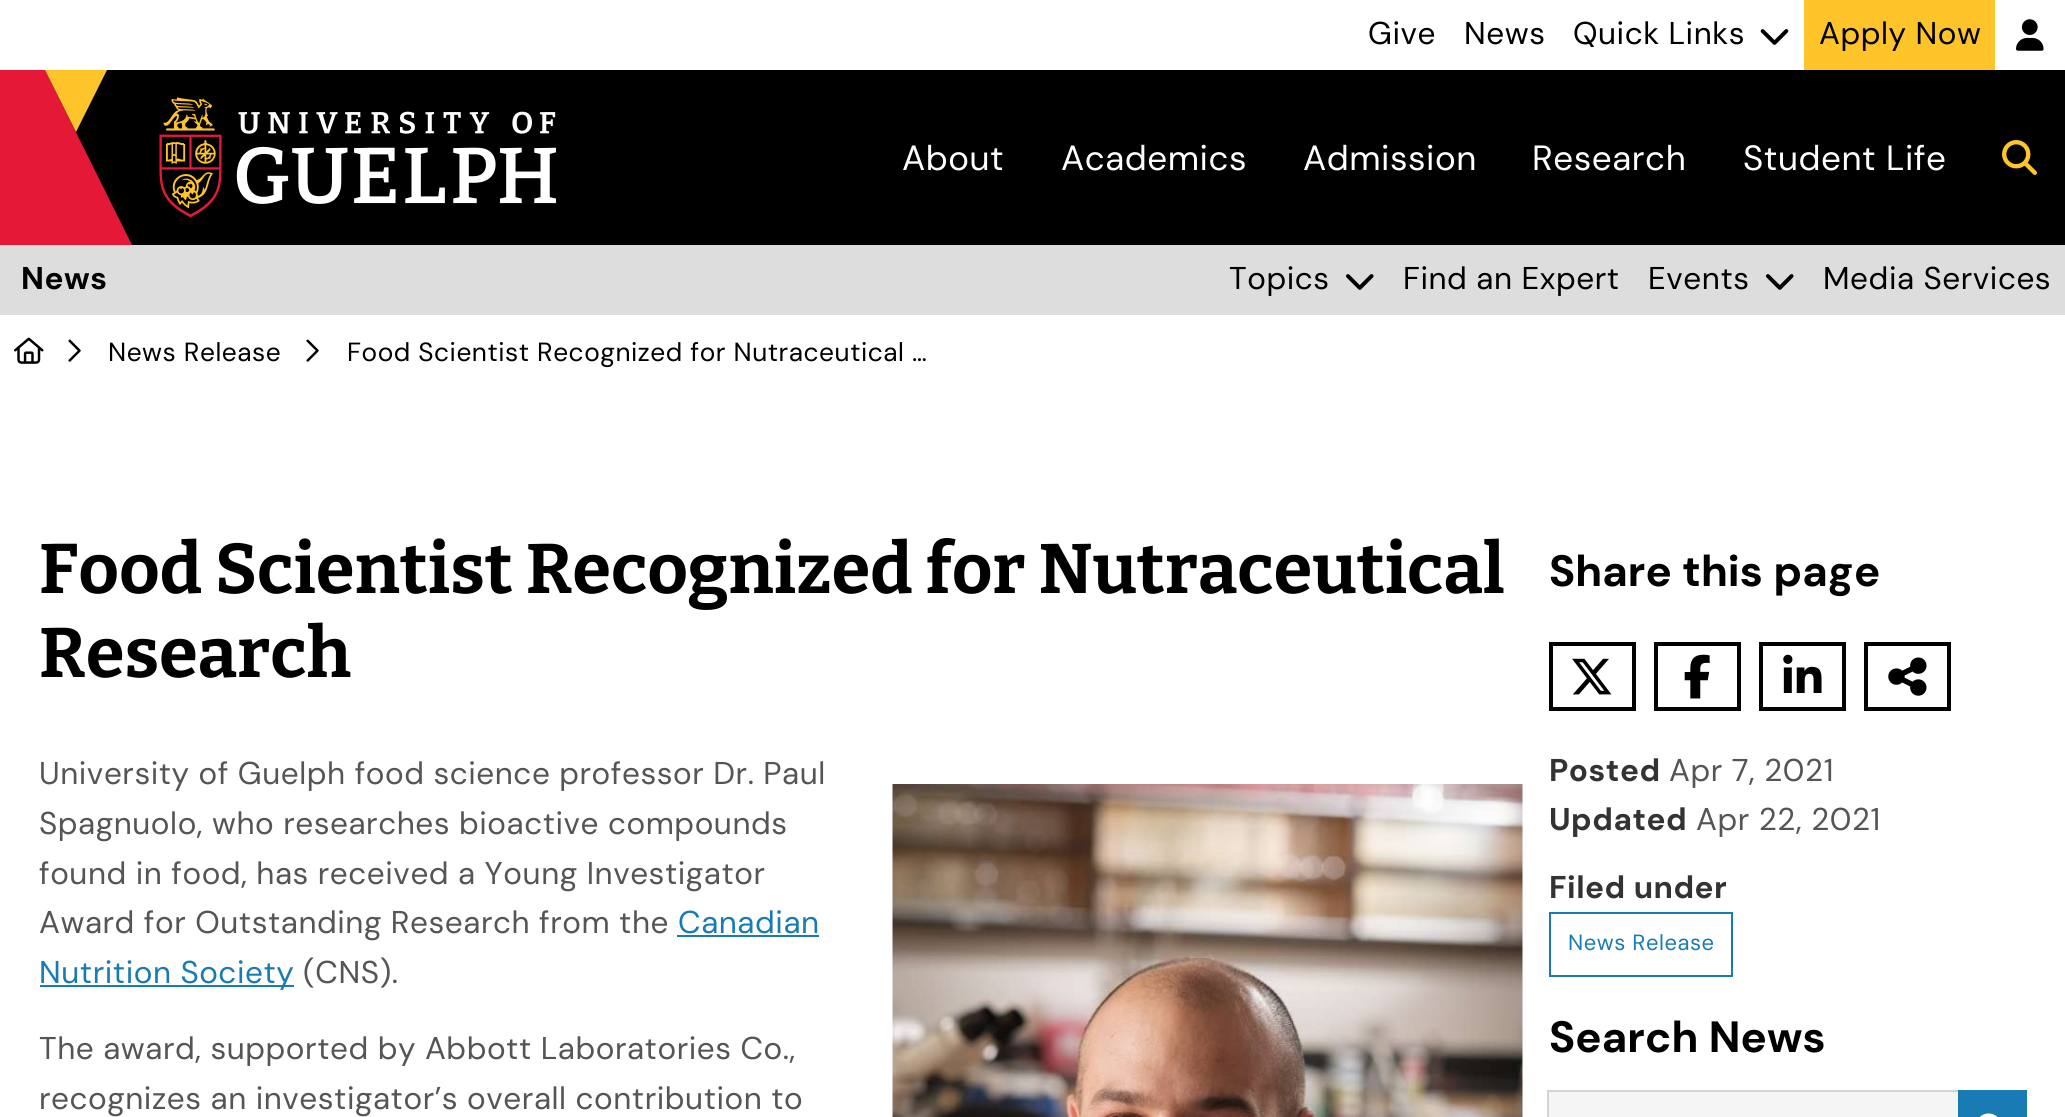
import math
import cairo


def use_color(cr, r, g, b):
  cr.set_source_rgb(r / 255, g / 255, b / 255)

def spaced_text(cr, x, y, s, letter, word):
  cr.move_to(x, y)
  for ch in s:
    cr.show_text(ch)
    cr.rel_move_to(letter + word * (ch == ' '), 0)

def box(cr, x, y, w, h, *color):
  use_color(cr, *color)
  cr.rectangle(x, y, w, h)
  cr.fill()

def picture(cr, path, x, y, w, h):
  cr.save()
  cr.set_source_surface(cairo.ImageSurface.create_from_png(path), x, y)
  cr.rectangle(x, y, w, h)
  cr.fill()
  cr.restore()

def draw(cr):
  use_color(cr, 255, 255, 255)
  cr.paint()
  picture(cr, "img_01.png", 1760, 29, 29, 16)
  box(cr, 1804, 0, 191, 70, 255, 196, 41)
  picture(cr, "img_02.png", 2016, 19, 28, 32)
  box(cr, 45, 70, 2020, 175, 0, 0, 0)
  use_color(cr, 229, 25, 55)
  cr.new_path()
  cr.move_to(45, 70)
  cr.line_to(132, 245)
  cr.line_to(0, 245)
  cr.line_to(0, 70)
  cr.fill()
  use_color(cr, 255, 196, 41)
  cr.new_path()
  cr.move_to(45, 70)
  cr.line_to(76, 132)
  cr.line_to(107, 70)
  cr.fill()
  picture(cr, "img_03.png", 159, 97, 397, 121)
  picture(cr, "img_04.png", 2002, 140, 35, 35)
  box(cr, 0, 245, 2065, 70, 221, 221, 221)
  picture(cr, "img_05.png", 1346, 274, 28, 16)
  picture(cr, "img_05.png", 1766, 274, 28, 16)
  picture(cr, "img_06.png", 14, 337, 30, 27)
  picture(cr, "img_07.png", 68, 339, 13, 23)
  picture(cr, "img_07.png", 306, 339, 13, 23)
  box(cr, 677, 935, 142, 2, 24, 123, 180)
  box(cr, 40, 985, 254, 2, 24, 123, 180)
  picture(cr, "img_08.png", 892, 784, 631, 333)
  cr.rectangle(1551, 644, 83, 65)
  use_color(cr, 0, 0, 0)
  cr.set_line_width(4)
  cr.stroke()
  picture(cr, "img_09.png", 1572, 658, 40, 37)
  cr.rectangle(1656, 644, 83, 65)
  cr.stroke()
  picture(cr, "img_10.png", 1684, 654, 26, 45)
  cr.rectangle(1761, 644, 83, 65)
  cr.stroke()
  picture(cr, "img_11.png", 1783, 654, 39, 39)
  cr.rectangle(1866, 644, 83, 65)
  cr.stroke()
  picture(cr, "img_12.png", 1888, 657, 39, 39)
  cr.rectangle(1550, 913, 182, 63)
  use_color(cr, 24, 123, 180)
  cr.set_line_width(2)
  cr.stroke()
  use_color(cr, 245, 245, 245)
  cr.rectangle(1548, 1091, 411, 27)
  cr.fill_preserve()
  use_color(cr, 206, 212, 218)
  cr.stroke()
  box(cr, 1958, 1090, 69, 27, 24, 123, 180)
  picture(cr, "img_13.png", 1979, 1113, 19, 4)
  cr.select_font_face("DM Sans")
  cr.set_font_size(31.5)
  use_color(cr, 0, 0, 0)
  spaced_text(cr, 1368, 44, "Give", 0.53, 0)
  spaced_text(cr, 1464, 44, "News", 0.53, 0)
  spaced_text(cr, 1573, 44, "Quick Links", 0.53, 0)
  spaced_text(cr, 1819, 44, "Apply Now", 0.53, 0)
  cr.select_font_face("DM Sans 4")
  cr.set_font_size(35)
  use_color(cr, 255, 255, 255)
  spaced_text(cr, 902, 170, "About", 0.53, 0)
  spaced_text(cr, 1061, 170, "Academics", 0.53, 0)
  spaced_text(cr, 1303, 170, "Admission", 0.53, 0)
  spaced_text(cr, 1532, 170, "Research", 0.53, 0)
  spaced_text(cr, 1743, 170, "Student Life", 0.53, 0)
  cr.select_font_face("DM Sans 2", cairo.FONT_SLANT_NORMAL, cairo.FONT_WEIGHT_BOLD)
  cr.set_font_size(31.5)
  use_color(cr, 0, 0, 0)
  spaced_text(cr, 21, 289, "News", 0.53, 0)
  cr.select_font_face("DM Sans")
  spaced_text(cr, 1229, 289, "Topics", 0.53, 0)
  spaced_text(cr, 1403, 289, "Find an Expert", 0.53, 0)
  spaced_text(cr, 1648, 289, "Events", 0.53, 0)
  spaced_text(cr, 1823, 289, "Media Services", 0.53, 0)
  cr.select_font_face("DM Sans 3")
  cr.set_font_size(26.25)
  spaced_text(cr, 108, 361, "News Release", 0.53, 0)
  spaced_text(cr, 347, 361, "Food Scientist Recognized for Nutraceutical …", 0.53, 0)
  cr.select_font_face("Bitter Thin")
  cr.set_font_size(70)
  spaced_text(cr, 39, 593, "Food Scientist Recognized for Nutraceutical", 0.2, 0)
  spaced_text(cr, 39, 677, "Research", 0.2, 0)
  cr.select_font_face("DM Sans")
  cr.set_font_size(31.5)
  use_color(cr, 85, 85, 85)
  spaced_text(cr, 39, 784, "University of Guelph food science professor Dr. Paul", 0.53, 0)
  spaced_text(cr, 39, 834, "Spagnuolo, who researches bioactive compounds", 0.53, 0)
  spaced_text(cr, 39, 884, "found in food, has received a Young Investigator", 0.53, 0)
  spaced_text(cr, 39, 933, "Award for Outstanding Research from the", 0.53, 0)
  use_color(cr, 24, 123, 180)
  spaced_text(cr, 678, 933, "Canadian", 0.53, 0)
  spaced_text(cr, 39, 983, "Nutrition Society", 0.53, 0)
  use_color(cr, 85, 85, 85)
  spaced_text(cr, 303, 983, "(CNS).", 0.53, 0)
  spaced_text(cr, 39, 1059, "The award, supported by Abbott Laboratories Co.,", 0.53, 0)
  spaced_text(cr, 39, 1109, "recognizes an investigator’s overall contribution to", 0.53, 0)
  cr.select_font_face("DM Sans", cairo.FONT_SLANT_NORMAL, cairo.FONT_WEIGHT_BOLD)
  cr.set_font_size(43.75)
  use_color(cr, 0, 0, 0)
  spaced_text(cr, 1549, 586, "Share this page", 0.2, 0)
  cr.select_font_face("DM Sans 2", cairo.FONT_SLANT_NORMAL, cairo.FONT_WEIGHT_BOLD)
  cr.set_font_size(31.5)
  use_color(cr, 51, 51, 51)
  spaced_text(cr, 1549, 781, "Posted", 0.53, 0)
  cr.select_font_face("DM Sans")
  use_color(cr, 85, 85, 85)
  spaced_text(cr, 1669, 781, "Apr 7, 2021", 0.53, 0)
  cr.select_font_face("DM Sans 2", cairo.FONT_SLANT_NORMAL, cairo.FONT_WEIGHT_BOLD)
  use_color(cr, 51, 51, 51)
  spaced_text(cr, 1549, 830, "Updated", 0.53, 0)
  cr.select_font_face("DM Sans")
  use_color(cr, 85, 85, 85)
  spaced_text(cr, 1696, 830, "Apr 22, 2021", 0.53, 0)
  cr.select_font_face("DM Sans 2", cairo.FONT_SLANT_NORMAL, cairo.FONT_WEIGHT_BOLD)
  use_color(cr, 51, 51, 51)
  spaced_text(cr, 1549, 898, "Filed under", 0.53, 0)
  cr.select_font_face("DM Sans 2")
  cr.set_font_size(22)
  use_color(cr, 24, 123, 180)
  spaced_text(cr, 1568, 950, "News Release", 0.53, 0)
  cr.select_font_face("DM Sans", cairo.FONT_SLANT_NORMAL, cairo.FONT_WEIGHT_BOLD)
  cr.set_font_size(43.75)
  use_color(cr, 0, 0, 0)
  spaced_text(cr, 1549, 1052, "Search News", 0.2, 0)


surface = cairo.ImageSurface(cairo.FORMAT_RGB24, 2065, 1117)
cr = cairo.Context(surface)
options = cairo.FontOptions()
options.set_hint_metrics(cairo.HINT_METRICS_OFF)
options.set_hint_style(cairo.HINT_STYLE_NONE)
cr.set_font_options(options)
cr.set_miter_limit(4)
draw(cr)
surface.write_to_png("out.png")
